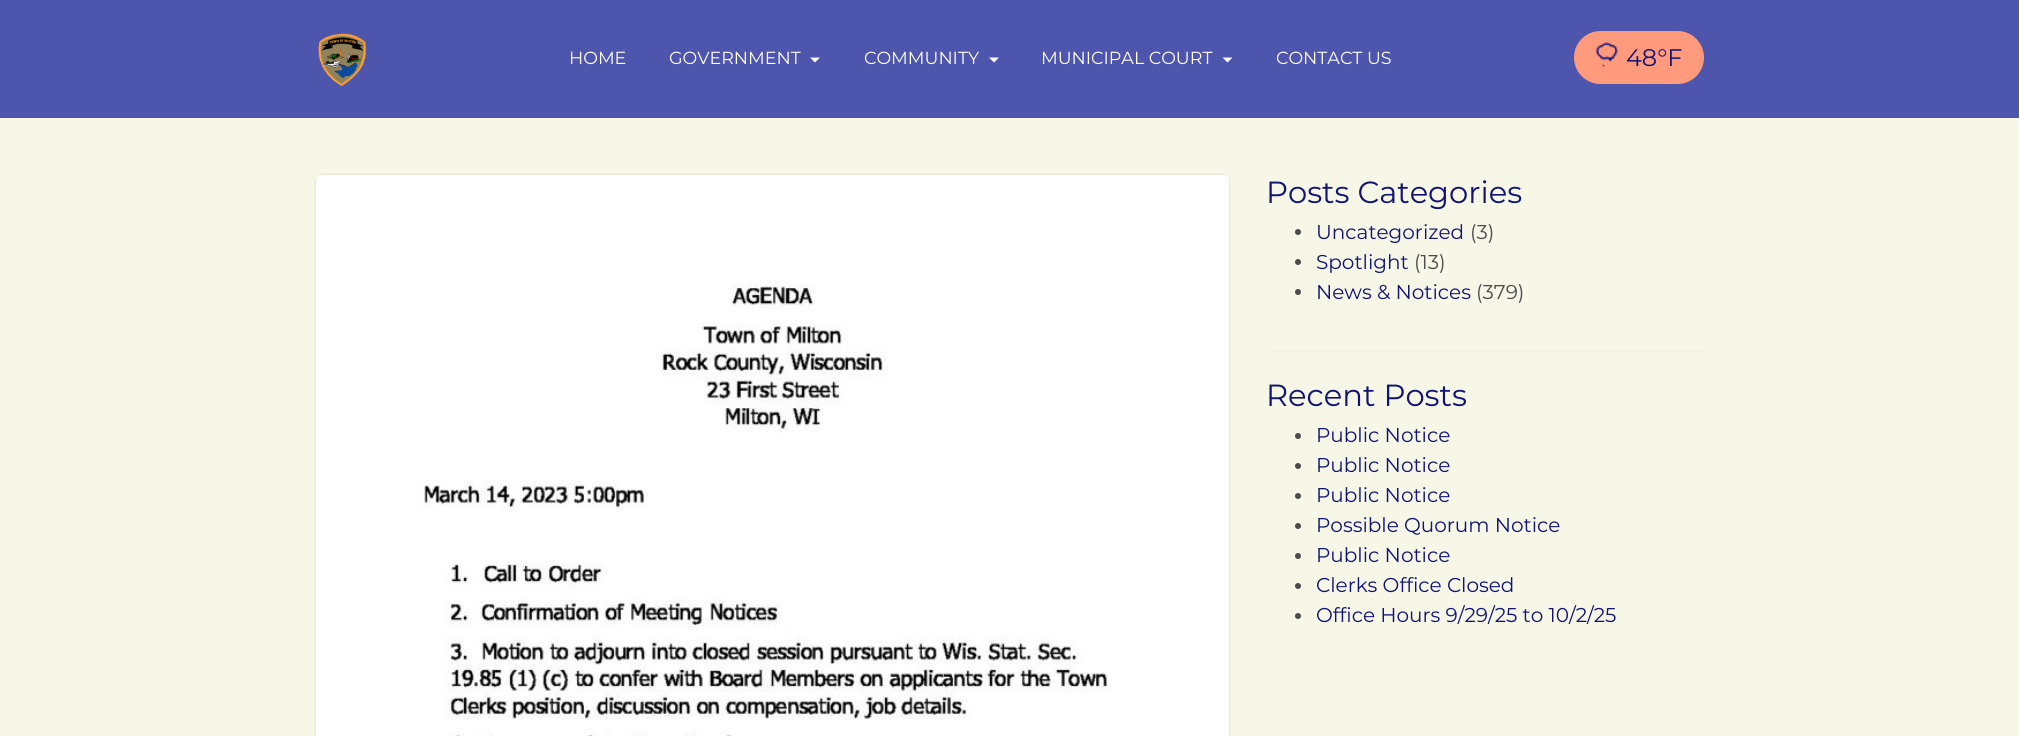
import math
import cairo


def use_color(cr, r, g, b):
  cr.set_source_rgb(r / 255, g / 255, b / 255)

def text(cr, x, y, s, family, size, color, bold=False, italic=False):
  cr.select_font_face(family, cairo.FONT_SLANT_ITALIC if italic else cairo.FONT_SLANT_NORMAL, cairo.FONT_WEIGHT_BOLD if bold else cairo.FONT_WEIGHT_NORMAL)
  cr.set_font_size(size)
  use_color(cr, *color)
  cr.move_to(x, y)
  cr.show_text(s)

def box(cr, x, y, w, h, *color):
  use_color(cr, *color)
  cr.rectangle(x, y, w, h)
  cr.fill()

def round_rect(cr, x, y, w, h, r):
  cr.new_sub_path()
  for i, (u, v) in enumerate([(x + w - r, y + h - r), (x + r, y + h - r), (x + r, y + r), (x + w - r, y + r)]):
    cr.arc(u, v, r, i * math.pi / 2, (i + 1) * math.pi / 2)
  cr.close_path()

def shadow(cr, x, y, w, h, r, blur, alpha):
  cr.push_group_with_content(cairo.CONTENT_ALPHA)
  cr.set_operator(cairo.OPERATOR_SOURCE)
  for i in range(15, -16, -2):
    e = blur * i / 6
    if min(w, h) + 2 * e > 0:
      cr.set_source_rgba(0, 0, 0, alpha * math.erfc((i - 1) / 8.5) / 2)
      round_rect(cr, x - e, y - e, w + 2 * e, h + 2 * e, max(0, min(r + e + blur * .6, min(w, h) / 2 + e)))
      cr.fill()
  cr.mask(cr.pop_group())

def picture(cr, path, x, y, w, h):
  cr.save()
  cr.set_source_surface(cairo.ImageSurface.create_from_png(path), x, y)
  cr.rectangle(x, y, w, h)
  cr.fill()
  cr.restore()

def draw(cr):
  use_color(cr, 246, 247, 231)
  cr.paint()
  box(cr, 0, 0, 2019, 118, 78, 85, 173)
  picture(cr, "img_01.png", 318, 33, 48, 54)
  use_color(cr, 255, 255, 255)
  cr.new_path()
  cr.move_to(810, 57.5)
  cr.line_to(820, 57.5)
  cr.line_to(815, 62.5)
  cr.close_path()
  cr.fill()
  cr.new_path()
  cr.move_to(989, 57.5)
  cr.line_to(999, 57.5)
  cr.line_to(994, 62.5)
  cr.close_path()
  cr.fill()
  cr.new_path()
  cr.move_to(1222.5, 57.5)
  cr.line_to(1232.5, 57.5)
  cr.line_to(1227.5, 62.5)
  cr.close_path()
  cr.fill()
  use_color(cr, 255, 155, 124)
  round_rect(cr, 1574, 31, 130, 53, 26.5)
  cr.fill()
  picture(cr, "img_02.png", 1596, 42, 22, 25)
  use_color(cr, 0, 0, 0)
  shadow(cr, 316, 175, 913, 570, 6, 1, 0.2)
  use_color(cr, 255, 255, 255)
  round_rect(cr, 316, 175, 913, 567, 6)
  cr.fill()
  picture(cr, "img_03.png", 316, 175, 913, 561)
  box(cr, 1266, 351, 438, 1, 240, 240, 240)
  use_color(cr, 76, 76, 76)
  cr.arc(1298, 232, 3, 0, 2 * math.pi)
  cr.fill()
  cr.arc(1298, 262, 3, 0, 2 * math.pi)
  cr.fill()
  cr.arc(1298, 292, 3, 0, 2 * math.pi)
  cr.fill()
  cr.arc(1298, 436, 3, 0, 2 * math.pi)
  cr.fill()
  cr.arc(1298, 466, 3, 0, 2 * math.pi)
  cr.fill()
  cr.arc(1298, 496, 3, 0, 2 * math.pi)
  cr.fill()
  cr.arc(1298, 526, 3, 0, 2 * math.pi)
  cr.fill()
  cr.arc(1298, 556, 3, 0, 2 * math.pi)
  cr.fill()
  cr.arc(1298, 586, 3, 0, 2 * math.pi)
  cr.fill()
  cr.arc(1298, 616, 3, 0, 2 * math.pi)
  cr.fill()
  text(cr, 569, 64, "HOME", "Montserrat", 17.5, (255, 255, 255))
  text(cr, 669, 64, "GOVERNMENT", "Montserrat", 17.5, (255, 255, 255))
  text(cr, 864, 64, "COMMUNITY", "Montserrat", 17.5, (255, 255, 255))
  text(cr, 1041, 64, "MUNICIPAL COURT", "Montserrat", 17.5, (255, 255, 255))
  text(cr, 1276, 64, "CONTACT US", "Montserrat", 17.5, (255, 255, 255))
  text(cr, 1626, 66, "48°F", "Montserrat", 24, (19, 19, 118))
  text(cr, 1266, 203, "Posts Categories", "Montserrat", 30.6, (19, 19, 118))
  text(cr, 1316, 239, "Uncategorized", "Montserrat", 20, (19, 19, 118))
  text(cr, 1470, 239, "(3)", "Montserrat", 20, (76, 76, 76))
  text(cr, 1316, 269, "Spotlight", "Montserrat", 20, (19, 19, 118))
  text(cr, 1414, 269, "(13)", "Montserrat", 20, (76, 76, 76))
  text(cr, 1316, 299, "News & Notices", "Montserrat", 20, (19, 19, 118))
  text(cr, 1476, 299, "(379)", "Montserrat", 20, (76, 76, 76))
  text(cr, 1266, 406, "Recent Posts", "Montserrat", 30.6, (19, 19, 118))
  text(cr, 1316, 442, "Public Notice", "Montserrat", 20, (19, 19, 118))
  text(cr, 1316, 472, "Public Notice", "Montserrat", 20, (19, 19, 118))
  text(cr, 1316, 502, "Public Notice", "Montserrat", 20, (19, 19, 118))
  text(cr, 1316, 532, "Possible Quorum Notice", "Montserrat", 20, (19, 19, 118))
  text(cr, 1316, 562, "Public Notice", "Montserrat", 20, (19, 19, 118))
  text(cr, 1316, 592, "Clerks Office Closed", "Montserrat", 20, (19, 19, 118))
  text(cr, 1316, 622, "Office Hours 9/29/25 to 10/2/25", "Montserrat", 20, (19, 19, 118))


surface = cairo.ImageSurface(cairo.FORMAT_RGB24, 2019, 736)
cr = cairo.Context(surface)
options = cairo.FontOptions()
options.set_hint_metrics(cairo.HINT_METRICS_OFF)
options.set_hint_style(cairo.HINT_STYLE_NONE)
cr.set_font_options(options)
cr.set_miter_limit(4)
draw(cr)
surface.write_to_png("out.png")
